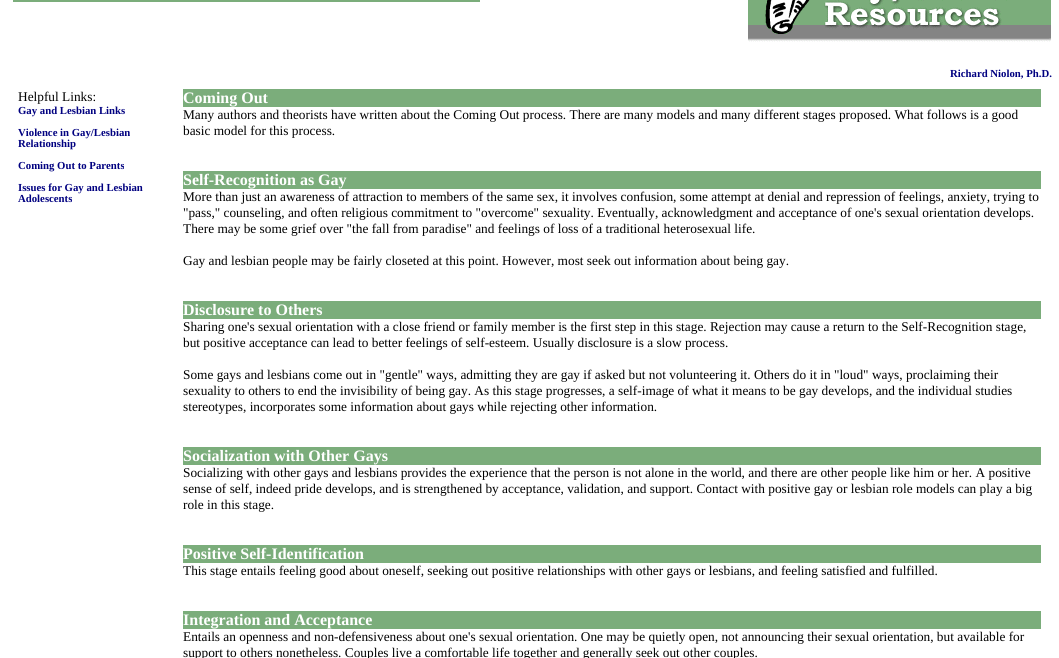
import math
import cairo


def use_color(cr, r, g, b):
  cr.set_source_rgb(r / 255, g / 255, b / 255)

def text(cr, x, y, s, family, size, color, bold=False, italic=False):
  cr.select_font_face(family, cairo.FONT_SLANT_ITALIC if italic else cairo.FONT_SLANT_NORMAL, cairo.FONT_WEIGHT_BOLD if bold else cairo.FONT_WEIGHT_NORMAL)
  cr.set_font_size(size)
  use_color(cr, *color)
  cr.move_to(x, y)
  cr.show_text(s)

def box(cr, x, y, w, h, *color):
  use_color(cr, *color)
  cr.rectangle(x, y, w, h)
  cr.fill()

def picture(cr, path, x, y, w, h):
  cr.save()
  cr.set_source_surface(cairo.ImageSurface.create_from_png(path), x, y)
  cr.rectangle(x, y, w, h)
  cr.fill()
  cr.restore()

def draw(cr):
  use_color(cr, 255, 255, 255)
  cr.paint()
  box(cr, 13, 0, 467, 2, 123, 173, 123)
  picture(cr, "img_01.png", 748, 0, 303, 42)
  box(cr, 183, 89, 858, 18, 123, 173, 123)
  box(cr, 183, 171, 858, 18, 123, 173, 123)
  box(cr, 183, 301, 858, 18, 123, 173, 123)
  box(cr, 183, 447, 858, 18, 123, 173, 123)
  box(cr, 183, 545, 858, 18, 123, 173, 123)
  box(cr, 183, 611, 858, 18, 123, 173, 123)
  text(cr, 950, 77, "Richard Niolon, Ph.D.", "Liberation Serif", 10.75, (0, 0, 128), bold=True)
  text(cr, 18, 101, "Helpful Links:", "Liberation Serif", 13.33, (0, 0, 0))
  text(cr, 18, 114, "Gay and Lesbian Links", "Liberation Serif", 10.75, (0, 0, 128), bold=True)
  text(cr, 18, 136, "Violence in Gay/Lesbian", "Liberation Serif", 10.75, (0, 0, 128), bold=True)
  text(cr, 18, 147, "Relationship", "Liberation Serif", 10.75, (0, 0, 128), bold=True)
  text(cr, 18, 169, "Coming Out to Parents", "Liberation Serif", 10.75, (0, 0, 128), bold=True)
  text(cr, 18, 191, "Issues for Gay and Lesbian", "Liberation Serif", 10.75, (0, 0, 128), bold=True)
  text(cr, 18, 202, "Adolescents", "Liberation Serif", 10.75, (0, 0, 128), bold=True)
  text(cr, 183, 103, "Coming Out", "Liberation Serif", 16, (255, 255, 255), bold=True)
  text(cr, 183, 119, "Many authors and theorists have written about the Coming Out process. There are many models and many different stages proposed. What follows is a good", "Liberation Serif", 13.33, (0, 0, 0))
  text(cr, 183, 135, "basic model for this process.", "Liberation Serif", 13.33, (0, 0, 0))
  text(cr, 183, 185, "Self-Recognition as Gay", "Liberation Serif", 16, (255, 255, 255), bold=True)
  text(cr, 183, 201, "More than just an awareness of attraction to members of the same sex, it involves confusion, some attempt at denial and repression of feelings, anxiety, trying to", "Liberation Serif", 13.33, (0, 0, 0))
  text(cr, 183, 217, "\"pass,\" counseling, and often religious commitment to \"overcome\" sexuality. Eventually, acknowledgment and acceptance of one's sexual orientation develops.", "Liberation Serif", 13.33, (0, 0, 0))
  text(cr, 183, 233, "There may be some grief over \"the fall from paradise\" and feelings of loss of a traditional heterosexual life.", "Liberation Serif", 13.33, (0, 0, 0))
  text(cr, 183, 265, "Gay and lesbian people may be fairly closeted at this point. However, most seek out information about being gay.", "Liberation Serif", 13.33, (0, 0, 0))
  text(cr, 183, 315, "Disclosure to Others", "Liberation Serif", 16, (255, 255, 255), bold=True)
  text(cr, 183, 331, "Sharing one's sexual orientation with a close friend or family member is the first step in this stage. Rejection may cause a return to the Self-Recognition stage,", "Liberation Serif", 13.33, (0, 0, 0))
  text(cr, 183, 347, "but positive acceptance can lead to better feelings of self-esteem. Usually disclosure is a slow process.", "Liberation Serif", 13.33, (0, 0, 0))
  text(cr, 183, 379, "Some gays and lesbians come out in \"gentle\" ways, admitting they are gay if asked but not volunteering it. Others do it in \"loud\" ways, proclaiming their", "Liberation Serif", 13.33, (0, 0, 0))
  text(cr, 183, 395, "sexuality to others to end the invisibility of being gay. As this stage progresses, a self-image of what it means to be gay develops, and the individual studies", "Liberation Serif", 13.33, (0, 0, 0))
  text(cr, 183, 411, "stereotypes, incorporates some information about gays while rejecting other information.", "Liberation Serif", 13.33, (0, 0, 0))
  text(cr, 183, 461, "Socialization with Other Gays", "Liberation Serif", 16, (255, 255, 255), bold=True)
  text(cr, 183, 477, "Socializing with other gays and lesbians provides the experience that the person is not alone in the world, and there are other people like him or her. A positive", "Liberation Serif", 13.33, (0, 0, 0))
  text(cr, 183, 493, "sense of self, indeed pride develops, and is strengthened by acceptance, validation, and support. Contact with positive gay or lesbian role models can play a big", "Liberation Serif", 13.33, (0, 0, 0))
  text(cr, 183, 509, "role in this stage.", "Liberation Serif", 13.33, (0, 0, 0))
  text(cr, 183, 559, "Positive Self-Identification", "Liberation Serif", 16, (255, 255, 255), bold=True)
  text(cr, 183, 575, "This stage entails feeling good about oneself, seeking out positive relationships with other gays or lesbians, and feeling satisfied and fulfilled.", "Liberation Serif", 13.33, (0, 0, 0))
  text(cr, 183, 625, "Integration and Acceptance", "Liberation Serif", 16, (255, 255, 255), bold=True)
  text(cr, 183, 641, "Entails an openness and non-defensiveness about one's sexual orientation. One may be quietly open, not announcing their sexual orientation, but available for", "Liberation Serif", 13.33, (0, 0, 0))
  text(cr, 183, 657, "support to others nonetheless. Couples live a comfortable life together and generally seek out other couples.", "Liberation Serif", 13.33, (0, 0, 0))


surface = cairo.ImageSurface(cairo.FORMAT_RGB24, 1059, 658)
cr = cairo.Context(surface)
options = cairo.FontOptions()
options.set_hint_metrics(cairo.HINT_METRICS_OFF)
options.set_hint_style(cairo.HINT_STYLE_NONE)
cr.set_font_options(options)
cr.set_miter_limit(4)
draw(cr)
surface.write_to_png("out.png")
